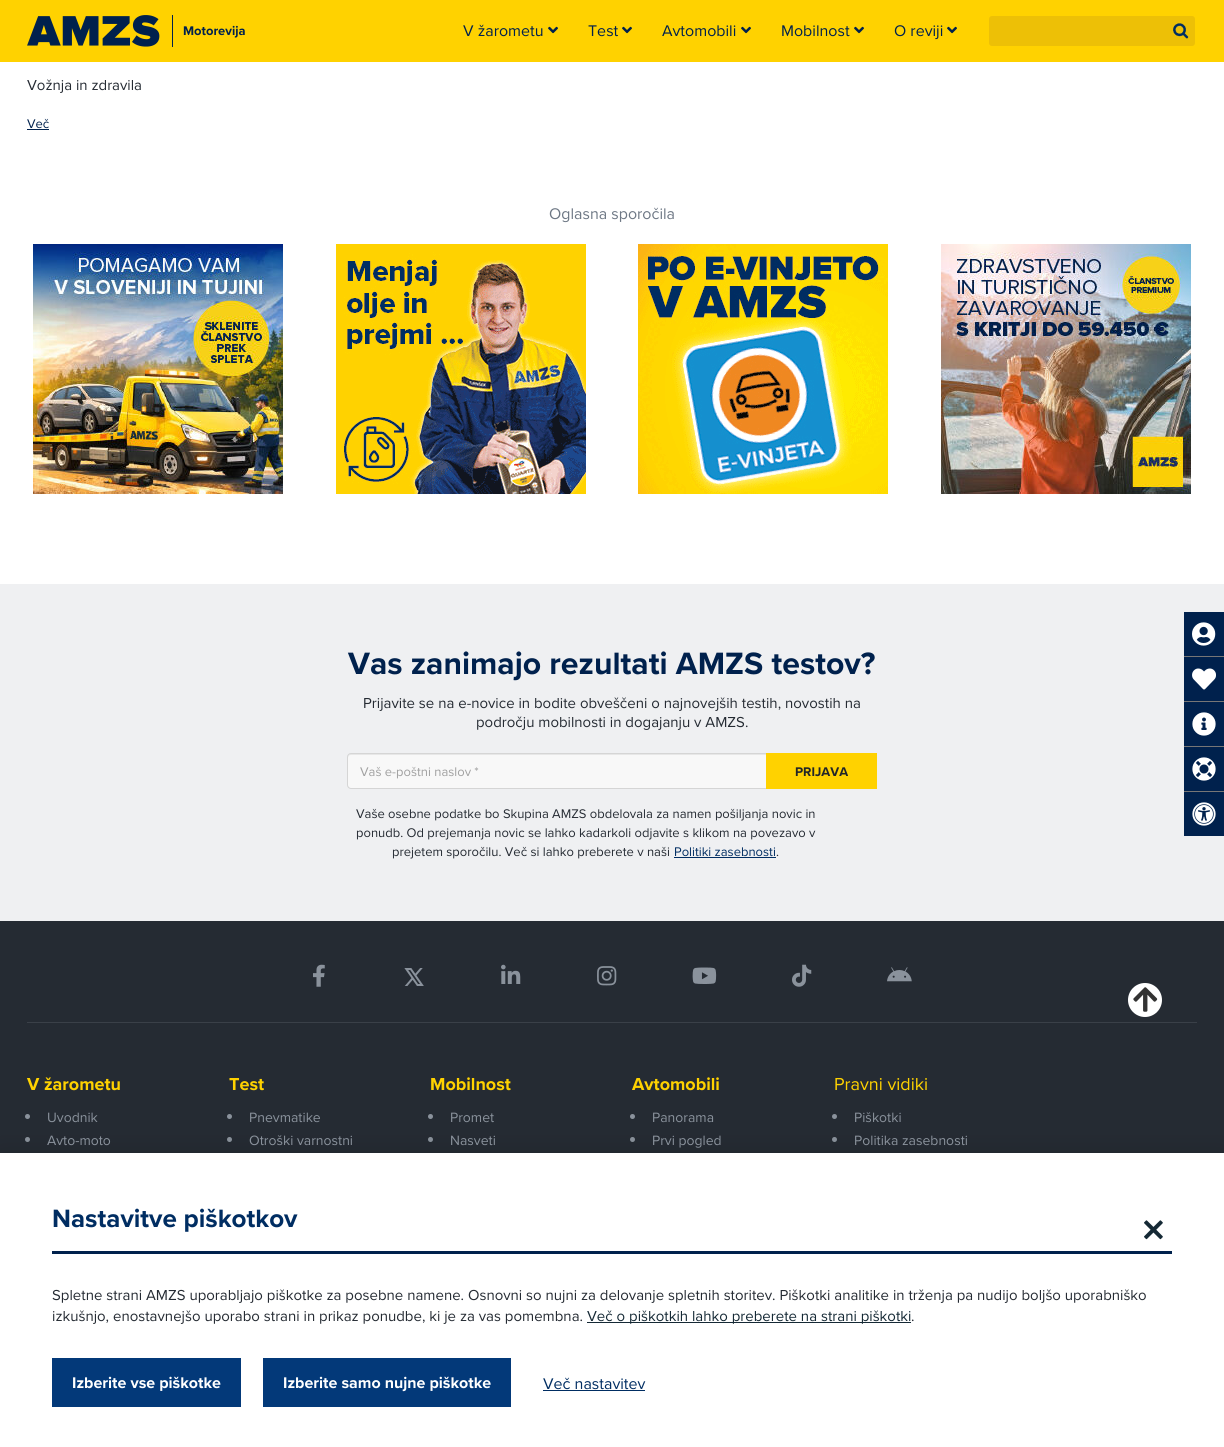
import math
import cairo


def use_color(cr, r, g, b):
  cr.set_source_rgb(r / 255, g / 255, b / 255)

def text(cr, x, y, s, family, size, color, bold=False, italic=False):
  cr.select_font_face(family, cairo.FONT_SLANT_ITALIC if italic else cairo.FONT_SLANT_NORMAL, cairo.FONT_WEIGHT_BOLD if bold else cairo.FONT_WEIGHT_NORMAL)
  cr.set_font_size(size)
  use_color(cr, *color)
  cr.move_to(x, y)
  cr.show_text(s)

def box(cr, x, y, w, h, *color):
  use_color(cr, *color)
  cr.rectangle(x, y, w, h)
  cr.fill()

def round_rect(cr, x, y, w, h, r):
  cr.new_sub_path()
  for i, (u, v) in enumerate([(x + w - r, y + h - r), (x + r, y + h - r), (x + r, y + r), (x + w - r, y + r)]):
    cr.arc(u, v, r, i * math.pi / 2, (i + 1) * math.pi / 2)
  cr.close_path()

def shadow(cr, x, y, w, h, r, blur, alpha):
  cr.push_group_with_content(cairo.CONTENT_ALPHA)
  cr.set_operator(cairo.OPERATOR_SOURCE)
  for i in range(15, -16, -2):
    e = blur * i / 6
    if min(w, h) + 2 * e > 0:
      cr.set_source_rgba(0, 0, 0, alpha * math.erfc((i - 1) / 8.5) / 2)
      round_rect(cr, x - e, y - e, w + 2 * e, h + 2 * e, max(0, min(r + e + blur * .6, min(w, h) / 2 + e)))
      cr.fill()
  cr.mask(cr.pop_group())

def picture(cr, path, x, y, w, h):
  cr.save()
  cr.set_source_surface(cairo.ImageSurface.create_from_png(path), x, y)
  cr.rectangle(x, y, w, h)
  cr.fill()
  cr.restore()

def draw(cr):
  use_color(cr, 255, 255, 255)
  cr.paint()
  box(cr, 0, 0, 1224, 62, 255, 210, 0)
  picture(cr, "img_01.png", 27, 15, 133, 32)
  box(cr, 172, 15, 1, 32, 0, 33, 77)
  picture(cr, "img_02.png", 548, 26, 10, 8)
  picture(cr, "img_02.png", 622, 26, 10, 8)
  picture(cr, "img_02.png", 741, 26, 10, 8)
  picture(cr, "img_02.png", 854, 26, 10, 8)
  picture(cr, "img_02.png", 947, 26, 10, 8)
  use_color(cr, 237, 192, 6)
  round_rect(cr, 989, 16, 206, 30, 3)
  cr.fill()
  picture(cr, "img_03.png", 1173, 23, 16, 16)
  box(cr, 27, 129, 22, 1, 0, 33, 77)
  picture(cr, "img_04.png", 33, 244, 250, 250)
  picture(cr, "img_05.png", 336, 244, 250, 250)
  picture(cr, "img_06.png", 638, 244, 250, 250)
  picture(cr, "img_07.png", 941, 244, 250, 250)
  box(cr, 0, 584, 1224, 337, 239, 240, 242)
  use_color(cr, 248, 248, 248)
  round_rect(cr, 348, 754, 475, 34, 3)
  cr.fill()
  cr.set_source_rgba(0, 0, 0, 0.07)
  cr.new_path()
  cr.move_to(351, 755)
  cr.line_to(820, 755)
  cr.curve_to(822, 755, 823, 756, 823, 758)
  cr.curve_to(823, 756, 822, 754, 820, 754)
  cr.line_to(350, 754)
  cr.line_to(348, 756)
  cr.line_to(348, 758)
  cr.curve_to(348, 756, 349, 755, 351, 755)
  cr.close_path()
  cr.fill()
  round_rect(cr, 347.5, 753.5, 476, 35, 3.5)
  use_color(cr, 213, 213, 213)
  cr.set_line_width(1)
  cr.stroke()
  box(cr, 766, 753, 111, 36, 255, 210, 0)
  box(cr, 674, 857, 102, 1, 0, 45, 98)
  box(cr, 1184, 612, 40, 224, 0, 33, 77)
  box(cr, 1184, 656, 40, 1, 119, 118, 118)
  picture(cr, "img_08.png", 1192, 622, 24, 24)
  box(cr, 1184, 701, 40, 1, 119, 118, 118)
  picture(cr, "img_09.png", 1192, 668, 24, 22)
  box(cr, 1184, 746, 40, 1, 119, 118, 118)
  picture(cr, "img_10.png", 1192, 712, 24, 24)
  box(cr, 1184, 791, 40, 1, 119, 118, 118)
  picture(cr, "img_11.png", 1192, 757, 24, 24)
  picture(cr, "img_12.png", 1192, 802, 24, 24)
  box(cr, 0, 921, 1224, 232, 37, 43, 51)
  use_color(cr, 255, 255, 255)
  cr.arc(1145, 1000, 17, 0, 2 * math.pi)
  cr.fill()
  picture(cr, "img_13.png", 1133, 987, 25, 25)
  box(cr, 27, 1022, 1170, 1, 58, 64, 72)
  picture(cr, "img_14.png", 313, 964, 12, 23)
  picture(cr, "img_15.png", 404, 968, 20, 18)
  picture(cr, "img_16.png", 501, 964, 20, 20)
  picture(cr, "img_17.png", 597, 966, 20, 20)
  picture(cr, "img_18.png", 692, 967, 25, 17)
  picture(cr, "img_19.png", 792, 964, 20, 23)
  picture(cr, "img_20.png", 887, 967, 25, 15)
  use_color(cr, 138, 146, 156)
  cr.arc(27.5, 1116.5, 2.5, 0, 2 * math.pi)
  cr.fill()
  cr.arc(27.5, 1139.5, 2.5, 0, 2 * math.pi)
  cr.fill()
  cr.arc(229.5, 1116.5, 2.5, 0, 2 * math.pi)
  cr.fill()
  cr.arc(229.5, 1139.5, 2.5, 0, 2 * math.pi)
  cr.fill()
  cr.arc(430.5, 1116.5, 2.5, 0, 2 * math.pi)
  cr.fill()
  cr.arc(430.5, 1139.5, 2.5, 0, 2 * math.pi)
  cr.fill()
  cr.arc(632.5, 1116.5, 2.5, 0, 2 * math.pi)
  cr.fill()
  cr.arc(632.5, 1139.5, 2.5, 0, 2 * math.pi)
  cr.fill()
  cr.arc(834.5, 1116.5, 2.5, 0, 2 * math.pi)
  cr.fill()
  cr.arc(834.5, 1139.5, 2.5, 0, 2 * math.pi)
  cr.fill()
  use_color(cr, 0, 0, 0)
  shadow(cr, 0, 1153, 1224, 294, 0, 12.5, 0.15)
  box(cr, 0, 1153, 1224, 294, 255, 255, 255)
  box(cr, 52, 1251, 1120, 3, 0, 33, 77)
  picture(cr, "img_21.png", 1144, 1220, 19, 20)
  box(cr, 587, 1322, 324, 1, 21, 41, 53)
  box(cr, 52, 1358, 189, 49, 3, 57, 121)
  box(cr, 263, 1358, 248, 49, 3, 57, 121)
  box(cr, 543, 1390, 102, 1, 0, 45, 98)
  text(cr, 183, 35, "Motorevija", "Proxima Nova", 13, (0, 33, 77), bold=True)
  text(cr, 463, 36, "V žarometu", "Proxima Nova", 16, (0, 33, 77))
  text(cr, 588, 36, "Test", "Proxima Nova", 16, (0, 33, 77))
  text(cr, 662, 36, "Avtomobili", "Proxima Nova", 16, (0, 33, 77))
  text(cr, 781, 36, "Mobilnost", "Proxima Nova", 16, (0, 33, 77))
  text(cr, 894, 36, "O reviji", "Proxima Nova", 16, (0, 33, 77))
  text(cr, 27, 90, "Vožnja in zdravila", "Proxima Nova", 15, (37, 43, 51))
  text(cr, 27, 128, "Več", "Proxima Nova", 13, (0, 33, 77))
  text(cr, 549, 219, "Oglasna sporočila", "Proxima Nova", 16, (110, 120, 133))
  text(cr, 348, 674, "Vas zanimajo rezultati AMZS testov?", "Proxima Nova", 32, (0, 33, 77), bold=True)
  text(cr, 363, 708, "Prijavite se na e-novice in bodite obveščeni o najnovejših testih, novostih na", "Proxima Nova", 15, (37, 43, 51))
  text(cr, 476, 727, "področju mobilnosti in dogajanju v AMZS.", "Proxima Nova", 15, (37, 43, 51))
  text(cr, 360, 776, "Vaš e-poštni naslov *", "Proxima Nova", 13, (160, 160, 160))
  text(cr, 795, 776, "PRIJAVA", "Proxima Nova", 13, (33, 37, 41), bold=True)
  text(cr, 356, 818, "Vaše osebne podatke bo Skupina AMZS obdelovala za namen pošiljanja novic in", "Proxima Nova", 13, (37, 43, 51))
  text(cr, 356, 837, "ponudb. Od prejemanja novic se lahko kadarkoli odjavite s klikom na povezavo v", "Proxima Nova", 13, (37, 43, 51))
  text(cr, 392, 856, "prejetem sporočilu. Več si lahko preberete v naši", "Proxima Nova", 13, (37, 43, 51))
  text(cr, 674, 856, "Politiki zasebnosti", "Proxima Nova", 13, (0, 45, 98))
  text(cr, 776, 856, ".", "Proxima Nova", 13, (37, 43, 51))
  text(cr, 27, 1090, "V žarometu", "Proxima Nova", 18, (255, 210, 0), bold=True)
  text(cr, 47, 1122, "Uvodnik", "Proxima Nova", 14, (138, 146, 156))
  text(cr, 47, 1145, "Avto-moto", "Proxima Nova", 14, (138, 146, 156))
  text(cr, 229, 1090, "Test", "Proxima Nova", 18, (255, 210, 0), bold=True)
  text(cr, 249, 1122, "Pnevmatike", "Proxima Nova", 14, (138, 146, 156))
  text(cr, 249, 1145, "Otroški varnostni", "Proxima Nova", 14, (138, 146, 156))
  text(cr, 430, 1090, "Mobilnost", "Proxima Nova", 18, (255, 210, 0), bold=True)
  text(cr, 450, 1122, "Promet", "Proxima Nova", 14, (138, 146, 156))
  text(cr, 450, 1145, "Nasveti", "Proxima Nova", 14, (138, 146, 156))
  text(cr, 632, 1090, "Avtomobili", "Proxima Nova", 18, (255, 210, 0), bold=True)
  text(cr, 652, 1122, "Panorama", "Proxima Nova", 14, (138, 146, 156))
  text(cr, 652, 1145, "Prvi pogled", "Proxima Nova", 14, (138, 146, 156))
  text(cr, 834, 1090, "Pravni vidiki", "Proxima Nova", 18, (255, 210, 0))
  text(cr, 854, 1122, "Piškotki", "Proxima Nova", 14, (138, 146, 156))
  text(cr, 854, 1145, "Politika zasebnosti", "Proxima Nova", 14, (138, 146, 156))
  text(cr, 52, 1227, "Nastavitve piškotkov", "Proxima Nova", 26, (0, 45, 98), bold=True)
  text(cr, 52, 1300, "Spletne strani AMZS uporabljajo piškotke za posebne namene. Osnovni so nujni za delovanje spletnih storitev. Piškotki analitike in trženja pa nudijo boljšo uporabniško", "Proxima Nova", 15, (37, 43, 51))
  text(cr, 52, 1321, "izkušnjo, enostavnejšo uporabo strani in prikaz ponudbe, ki je za vas pomembna.", "Proxima Nova", 15, (37, 43, 51))
  text(cr, 587, 1321, "Več o piškotkih lahko preberete na strani piškotki", "Proxima Nova", 15, (21, 41, 53))
  text(cr, 911, 1321, ".", "Proxima Nova", 15, (37, 43, 51))
  text(cr, 72, 1388, "Izberite vse piškotke", "Proxima Nova", 16, (255, 255, 255), bold=True)
  text(cr, 283, 1388, "Izberite samo nujne piškotke", "Proxima Nova", 16, (255, 255, 255), bold=True)
  text(cr, 543, 1389, "Več nastavitev", "Proxima Nova", 16, (0, 45, 98))


surface = cairo.ImageSurface(cairo.FORMAT_RGB24, 1224, 1447)
cr = cairo.Context(surface)
options = cairo.FontOptions()
options.set_hint_metrics(cairo.HINT_METRICS_OFF)
options.set_hint_style(cairo.HINT_STYLE_NONE)
cr.set_font_options(options)
cr.set_miter_limit(4)
draw(cr)
surface.write_to_png("out.png")
